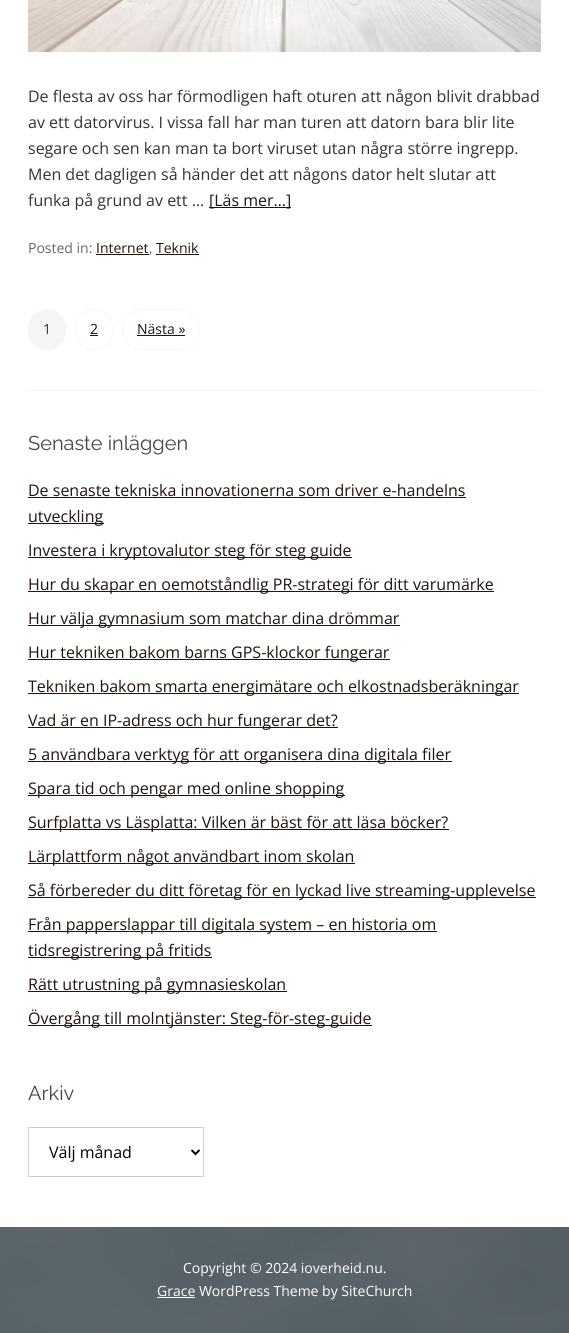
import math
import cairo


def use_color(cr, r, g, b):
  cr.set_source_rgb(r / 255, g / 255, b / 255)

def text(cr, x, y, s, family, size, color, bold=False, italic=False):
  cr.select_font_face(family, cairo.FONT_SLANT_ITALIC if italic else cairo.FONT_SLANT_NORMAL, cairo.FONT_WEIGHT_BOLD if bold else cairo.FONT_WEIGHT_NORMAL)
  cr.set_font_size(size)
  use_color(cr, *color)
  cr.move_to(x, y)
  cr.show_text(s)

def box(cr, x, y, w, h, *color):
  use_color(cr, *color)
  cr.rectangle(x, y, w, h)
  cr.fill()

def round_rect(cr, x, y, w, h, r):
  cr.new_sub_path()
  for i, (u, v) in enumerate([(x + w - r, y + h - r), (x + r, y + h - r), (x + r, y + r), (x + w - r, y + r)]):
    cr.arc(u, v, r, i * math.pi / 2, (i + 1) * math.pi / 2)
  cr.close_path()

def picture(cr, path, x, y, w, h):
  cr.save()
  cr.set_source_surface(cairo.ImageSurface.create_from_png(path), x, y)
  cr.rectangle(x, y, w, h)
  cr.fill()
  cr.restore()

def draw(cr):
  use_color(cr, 255, 255, 255)
  cr.paint()
  picture(cr, "img_01.png", 0, 1227, 569, 106)
  picture(cr, "img_02.png", 28, 0, 513, 52)
  box(cr, 209, 207, 82, 1, 34, 19, 12)
  box(cr, 96, 254, 53, 1, 34, 19, 12)
  box(cr, 156, 254, 43, 1, 34, 19, 12)
  use_color(cr, 245, 245, 245)
  round_rect(cr, 28, 309, 38, 41, 19)
  cr.fill()
  round_rect(cr, 75.5, 309.5, 37, 40, 18.5)
  cr.set_line_width(1)
  cr.stroke()
  box(cr, 90, 335, 8, 1, 34, 19, 12)
  round_rect(cr, 122.5, 309.5, 77, 40, 20)
  use_color(cr, 245, 245, 245)
  cr.stroke()
  box(cr, 137, 335, 48, 1, 34, 19, 12)
  box(cr, 28, 390, 513, 1, 245, 245, 245)
  box(cr, 28, 497, 438, 1, 34, 19, 12)
  box(cr, 28, 523, 76, 1, 34, 19, 12)
  box(cr, 28, 557, 324, 1, 34, 19, 12)
  box(cr, 28, 591, 466, 1, 34, 19, 12)
  box(cr, 28, 625, 372, 1, 34, 19, 12)
  box(cr, 28, 659, 362, 1, 34, 19, 12)
  box(cr, 28, 693, 491, 1, 34, 19, 12)
  box(cr, 28, 727, 310, 1, 34, 19, 12)
  box(cr, 28, 761, 424, 1, 34, 19, 12)
  box(cr, 28, 795, 317, 1, 34, 19, 12)
  box(cr, 28, 829, 421, 1, 34, 19, 12)
  box(cr, 28, 863, 327, 1, 34, 19, 12)
  box(cr, 28, 897, 508, 1, 34, 19, 12)
  box(cr, 28, 931, 409, 1, 34, 19, 12)
  box(cr, 28, 957, 184, 1, 34, 19, 12)
  box(cr, 28, 991, 259, 1, 34, 19, 12)
  box(cr, 28, 1025, 344, 1, 34, 19, 12)
  cr.rectangle(28.5, 1127.5, 175, 49)
  use_color(cr, 204, 204, 204)
  cr.stroke()
  cr.new_path()
  cr.move_to(191.5, 1150)
  cr.line_to(195.5, 1154)
  cr.line_to(199.5, 1150)
  use_color(cr, 0, 0, 0)
  cr.set_line_width(2)
  cr.stroke()
  cr.set_source_rgba(0.039, 0.039, 0.039, 0.5)
  cr.rectangle(0, 1227, 569, 106)
  cr.fill()
  box(cr, 157, 1297, 38, 1, 255, 255, 255)
  text(cr, 28, 102, "De flesta av oss har förmodligen haft oturen att någon blivit drabbad", "Open Sans", 16, (51, 51, 51))
  text(cr, 28, 128, "av ett datorvirus. I vissa fall har man turen att datorn bara blir lite", "Open Sans", 16, (51, 51, 51))
  text(cr, 28, 154, "segare och sen kan man ta bort viruset utan några större ingrepp.", "Open Sans", 16, (51, 51, 51))
  text(cr, 28, 180, "Men det dagligen så händer det att någons dator helt slutar att", "Open Sans", 16, (51, 51, 51))
  text(cr, 28, 206, "funka på grund av ett …", "Open Sans", 16, (51, 51, 51))
  text(cr, 209, 206, "[Läs mer…]", "Open Sans", 16, (34, 19, 12))
  text(cr, 28, 253, "Posted in:", "Open Sans", 14, (102, 102, 102))
  text(cr, 96, 253, "Internet", "Open Sans", 14, (34, 19, 12))
  text(cr, 149, 253, ",", "Open Sans", 14, (102, 102, 102))
  text(cr, 156, 253, "Teknik", "Open Sans", 14, (34, 19, 12))
  text(cr, 43, 334, "1", "Open Sans", 14, (51, 51, 51))
  text(cr, 90, 334, "2", "Open Sans", 14, (34, 19, 12))
  text(cr, 137, 334, "Nästa »", "Open Sans", 14, (34, 19, 12))
  text(cr, 28, 450, "Senaste inläggen", "Raleway Thin", 20, (68, 68, 68))
  text(cr, 28, 496, "De senaste tekniska innovationerna som driver e-handelns", "Open Sans", 16, (34, 19, 12))
  text(cr, 28, 522, "utveckling", "Open Sans", 16, (34, 19, 12))
  text(cr, 28, 556, "Investera i kryptovalutor steg för steg guide", "Open Sans", 16, (34, 19, 12))
  text(cr, 28, 590, "Hur du skapar en oemotståndlig PR-strategi för ditt varumärke", "Open Sans", 16, (34, 19, 12))
  text(cr, 28, 624, "Hur välja gymnasium som matchar dina drömmar", "Open Sans", 16, (34, 19, 12))
  text(cr, 28, 658, "Hur tekniken bakom barns GPS-klockor fungerar", "Open Sans", 16, (34, 19, 12))
  text(cr, 28, 692, "Tekniken bakom smarta energimätare och elkostnadsberäkningar", "Open Sans", 16, (34, 19, 12))
  text(cr, 28, 726, "Vad är en IP-adress och hur fungerar det?", "Open Sans", 16, (34, 19, 12))
  text(cr, 28, 760, "5 användbara verktyg för att organisera dina digitala filer", "Open Sans", 16, (34, 19, 12))
  text(cr, 28, 794, "Spara tid och pengar med online shopping", "Open Sans", 16, (34, 19, 12))
  text(cr, 28, 828, "Surfplatta vs Läsplatta: Vilken är bäst för att läsa böcker?", "Open Sans", 16, (34, 19, 12))
  text(cr, 28, 862, "Lärplattform något användbart inom skolan", "Open Sans", 16, (34, 19, 12))
  text(cr, 28, 896, "Så förbereder du ditt företag för en lyckad live streaming-upplevelse", "Open Sans", 16, (34, 19, 12))
  text(cr, 28, 930, "Från papperslappar till digitala system – en historia om", "Open Sans", 16, (34, 19, 12))
  text(cr, 28, 956, "tidsregistrering på fritids", "Open Sans", 16, (34, 19, 12))
  text(cr, 28, 990, "Rätt utrustning på gymnasieskolan", "Open Sans", 16, (34, 19, 12))
  text(cr, 28, 1024, "Övergång till molntjänster: Steg-för-steg-guide", "Open Sans", 16, (34, 19, 12))
  text(cr, 28, 1100, "Arkiv", "Raleway Thin", 20, (68, 68, 68))
  text(cr, 49, 1158, "Välj månad", "Open Sans", 16, (0, 0, 0))
  text(cr, 183, 1273, "Copyright © 2024 ioverheid.nu.", "Open Sans", 14, (255, 255, 255))
  text(cr, 157, 1296, "Grace WordPress Theme by SiteChurch", "Open Sans", 14, (255, 255, 255))


surface = cairo.ImageSurface(cairo.FORMAT_RGB24, 569, 1333)
cr = cairo.Context(surface)
options = cairo.FontOptions()
options.set_hint_metrics(cairo.HINT_METRICS_OFF)
options.set_hint_style(cairo.HINT_STYLE_NONE)
cr.set_font_options(options)
cr.set_miter_limit(4)
draw(cr)
surface.write_to_png("out.png")
